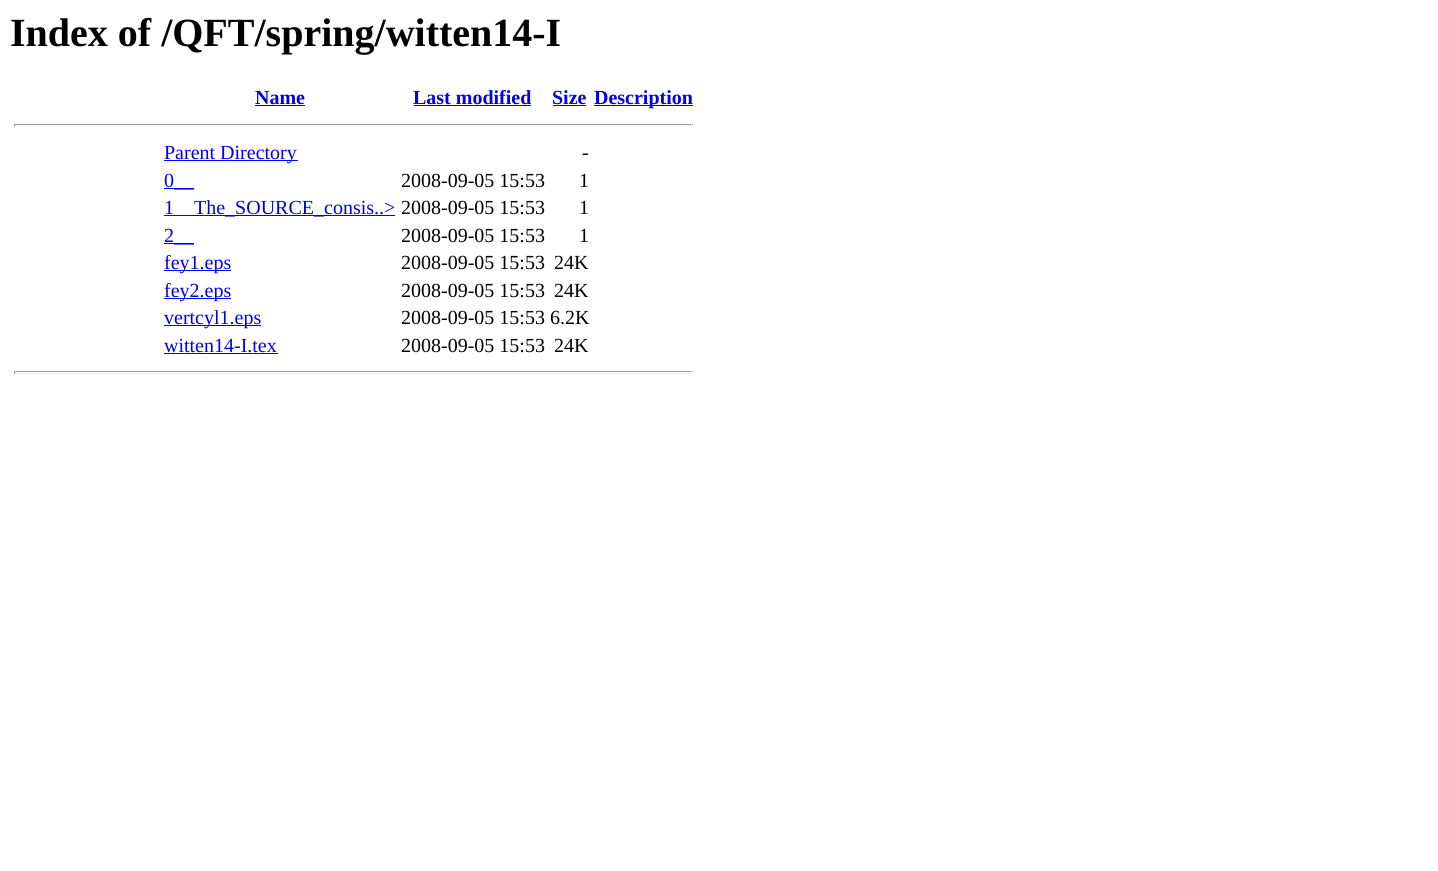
import math
import cairo


def use_color(cr, r, g, b):
  cr.set_source_rgb(r / 255, g / 255, b / 255)

def text(cr, x, y, s, family, size, color, bold=False, italic=False):
  cr.select_font_face(family, cairo.FONT_SLANT_ITALIC if italic else cairo.FONT_SLANT_NORMAL, cairo.FONT_WEIGHT_BOLD if bold else cairo.FONT_WEIGHT_NORMAL)
  cr.set_font_size(size)
  use_color(cr, *color)
  cr.move_to(x, y)
  cr.show_text(s)

def box(cr, x, y, w, h, *color):
  use_color(cr, *color)
  cr.rectangle(x, y, w, h)
  cr.fill()

def draw(cr):
  use_color(cr, 255, 255, 255)
  cr.paint()
  box(cr, 255, 105, 50, 1, 0, 0, 238)
  box(cr, 414, 105, 117, 1, 0, 0, 238)
  box(cr, 553, 105, 33, 1, 0, 0, 238)
  box(cr, 594, 105, 99, 1, 0, 0, 238)
  box(cr, 14, 124, 679, 1, 159, 159, 159)
  box(cr, 691, 124, 1, 3, 238, 238, 238)
  box(cr, 14, 125, 679, 1, 238, 238, 238)
  box(cr, 14, 124, 1, 3, 159, 159, 159)
  box(cr, 164, 160, 134, 1, 0, 0, 238)
  box(cr, 164, 188, 30, 1, 0, 0, 238)
  box(cr, 164, 215, 231, 1, 0, 0, 238)
  box(cr, 164, 243, 30, 1, 0, 0, 238)
  box(cr, 164, 270, 67, 1, 0, 0, 238)
  box(cr, 164, 298, 67, 1, 0, 0, 238)
  box(cr, 164, 325, 97, 1, 0, 0, 238)
  box(cr, 164, 353, 114, 1, 0, 0, 238)
  box(cr, 14, 371, 679, 1, 159, 159, 159)
  box(cr, 691, 371, 1, 3, 238, 238, 238)
  box(cr, 14, 373, 679, 1, 238, 238, 238)
  box(cr, 14, 371, 1, 3, 159, 159, 159)
  text(cr, 10, 46, "Index of /QFT/spring/witten14-I", "Liberation Serif", 40, (0, 0, 0), bold=True)
  text(cr, 255, 104, "Name", "Liberation Serif", 20, (0, 0, 238), bold=True)
  text(cr, 413, 104, "Last modified", "Liberation Serif", 20, (0, 0, 238), bold=True)
  text(cr, 552, 104, "Size", "Liberation Serif", 20, (0, 0, 238), bold=True)
  text(cr, 594, 104, "Description", "Liberation Serif", 20, (0, 0, 238), bold=True)
  text(cr, 164, 159, "Parent Directory", "Liberation Serif", 20, (0, 0, 238))
  text(cr, 582, 159, "-", "Liberation Serif", 20, (0, 0, 0))
  text(cr, 164, 187, "0__", "Liberation Serif", 20, (0, 0, 238))
  text(cr, 401, 187, "2008-09-05 15:53", "Liberation Serif", 20, (0, 0, 0))
  text(cr, 579, 187, "1", "Liberation Serif", 20, (0, 0, 0))
  text(cr, 164, 214, "1", "Liberation Serif", 20, (0, 0, 238))
  text(cr, 194, 214, "The_SOURCE_consis..>", "Liberation Serif", 20, (0, 0, 238))
  text(cr, 401, 214, "2008-09-05 15:53", "Liberation Serif", 20, (0, 0, 0))
  text(cr, 579, 214, "1", "Liberation Serif", 20, (0, 0, 0))
  text(cr, 164, 242, "2__", "Liberation Serif", 20, (0, 0, 238))
  text(cr, 401, 242, "2008-09-05 15:53", "Liberation Serif", 20, (0, 0, 0))
  text(cr, 579, 242, "1", "Liberation Serif", 20, (0, 0, 0))
  text(cr, 164, 269, "fey1.eps", "Liberation Serif", 20, (0, 0, 238))
  text(cr, 401, 269, "2008-09-05 15:53", "Liberation Serif", 20, (0, 0, 0))
  text(cr, 554, 269, "24K", "Liberation Serif", 20, (0, 0, 0))
  text(cr, 164, 297, "fey2.eps", "Liberation Serif", 20, (0, 0, 238))
  text(cr, 401, 297, "2008-09-05 15:53", "Liberation Serif", 20, (0, 0, 0))
  text(cr, 554, 297, "24K", "Liberation Serif", 20, (0, 0, 0))
  text(cr, 164, 324, "vertcyl1.eps", "Liberation Serif", 20, (0, 0, 238))
  text(cr, 401, 324, "2008-09-05 15:53 6.2K", "Liberation Serif", 20, (0, 0, 0))
  text(cr, 164, 352, "witten14-I.tex", "Liberation Serif", 20, (0, 0, 238))
  text(cr, 401, 352, "2008-09-05 15:53", "Liberation Serif", 20, (0, 0, 0))
  text(cr, 554, 352, "24K", "Liberation Serif", 20, (0, 0, 0))


surface = cairo.ImageSurface(cairo.FORMAT_RGB24, 1438, 871)
cr = cairo.Context(surface)
options = cairo.FontOptions()
options.set_hint_metrics(cairo.HINT_METRICS_OFF)
options.set_hint_style(cairo.HINT_STYLE_NONE)
cr.set_font_options(options)
cr.set_miter_limit(4)
draw(cr)
surface.write_to_png("out.png")
